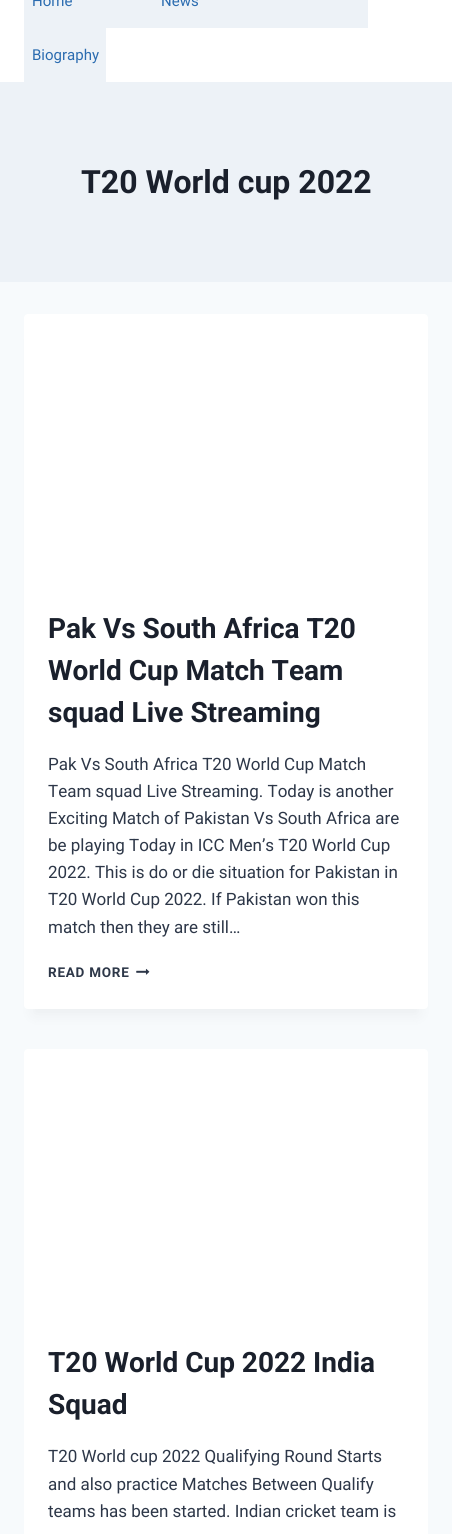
import math
import cairo


def use_color(cr, r, g, b):
  cr.set_source_rgb(r / 255, g / 255, b / 255)

def text(cr, x, y, s, family, size, color, bold=False, italic=False):
  cr.select_font_face(family, cairo.FONT_SLANT_ITALIC if italic else cairo.FONT_SLANT_NORMAL, cairo.FONT_WEIGHT_BOLD if bold else cairo.FONT_WEIGHT_NORMAL)
  cr.set_font_size(size)
  use_color(cr, *color)
  cr.move_to(x, y)
  cr.show_text(s)

def spaced_text(cr, x, y, s, letter, word):
  cr.move_to(x, y)
  for ch in s:
    cr.show_text(ch)
    cr.rel_move_to(letter + word * (ch == ' '), 0)

def box(cr, x, y, w, h, *color):
  use_color(cr, *color)
  cr.rectangle(x, y, w, h)
  cr.fill()

def round_rect(cr, x, y, w, h, r):
  cr.new_sub_path()
  for i, (u, v) in enumerate([(x + w - r, y + h - r), (x + r, y + h - r), (x + r, y + r), (x + w - r, y + r)]):
    cr.arc(u, v, r, i * math.pi / 2, (i + 1) * math.pi / 2)
  cr.close_path()

def shadow(cr, x, y, w, h, r, blur, alpha):
  cr.push_group_with_content(cairo.CONTENT_ALPHA)
  cr.set_operator(cairo.OPERATOR_SOURCE)
  for i in range(15, -16, -2):
    e = blur * i / 6
    if min(w, h) + 2 * e > 0:
      cr.set_source_rgba(0, 0, 0, alpha * math.erfc((i - 1) / 8.5) / 2)
      round_rect(cr, x - e, y - e, w + 2 * e, h + 2 * e, max(0, min(r + e + blur * .6, min(w, h) / 2 + e)))
      cr.fill()
  cr.mask(cr.pop_group())

def picture(cr, path, x, y, w, h):
  cr.save()
  cr.set_source_surface(cairo.ImageSurface.create_from_png(path), x, y)
  cr.rectangle(x, y, w, h)
  cr.fill()
  cr.restore()

def draw(cr):
  use_color(cr, 247, 250, 252)
  cr.paint()
  box(cr, 0, 0, 452, 82, 255, 255, 255)
  box(cr, 24, 0, 344, 28, 237, 242, 247)
  box(cr, 24, 28, 82, 54, 237, 242, 247)
  box(cr, 0, 82, 452, 200, 237, 242, 247)
  use_color(cr, 0, 0, 0)
  shadow(cr, 34, 339, 384, 675, 0, 7.5, 0.05)
  use_color(cr, 255, 255, 255)
  round_rect(cr, 24, 314, 404, 695, 4)
  cr.fill()
  picture(cr, "img_01.png", 136, 968, 14, 7)
  round_rect(cr, 24, 1049, 404, 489, 4)
  cr.fill()
  text(cr, 32, 6, "Home", "Roboto", 15, (43, 108, 176))
  text(cr, 161, 6, "News", "Roboto", 15, (43, 108, 176))
  text(cr, 32, 60, "Biography", "Roboto", 15, (43, 108, 176))
  text(cr, 81, 193, "T20 World cup 2022", "Roboto", 32, (26, 32, 44), bold=True)
  text(cr, 48, 638, "Pak Vs South Africa T20", "Roboto", 28, (26, 32, 44), bold=True)
  text(cr, 48, 680, "World Cup Match Team", "Roboto", 28, (26, 32, 44), bold=True)
  text(cr, 48, 722, "squad Live Streaming", "Roboto", 28, (26, 32, 44), bold=True)
  text(cr, 48, 770, "Pak Vs South Africa T20 World Cup Match", "Roboto", 17, (45, 55, 72))
  text(cr, 48, 797, "Team squad Live Streaming. Today is another", "Roboto", 17, (45, 55, 72))
  text(cr, 48, 824, "Exciting Match of Pakistan Vs South Africa are", "Roboto", 17, (45, 55, 72))
  text(cr, 48, 851, "be playing Today in ICC Men’s T20 World Cup", "Roboto", 17, (45, 55, 72))
  text(cr, 48, 878, "2022. This is do or die situation for Pakistan in", "Roboto", 17, (45, 55, 72))
  text(cr, 48, 905, "T20 World Cup 2022. If Pakistan won this", "Roboto", 17, (45, 55, 72))
  text(cr, 48, 933, "match then they are still…", "Roboto", 17, (45, 55, 72))
  cr.select_font_face("Roboto", cairo.FONT_SLANT_NORMAL, cairo.FONT_WEIGHT_BOLD)
  cr.set_font_size(13.5)
  spaced_text(cr, 48, 977, "READ MORE", 0.75, 0)
  text(cr, 48, 1372, "T20 World Cup 2022 India", "Roboto", 28, (26, 32, 44), bold=True)
  text(cr, 48, 1414, "Squad", "Roboto", 28, (26, 32, 44), bold=True)
  text(cr, 48, 1462, "T20 World cup 2022 Qualifying Round Starts", "Roboto", 17, (45, 55, 72))
  text(cr, 48, 1490, "and also practice Matches Between Qualify", "Roboto", 17, (45, 55, 72))
  text(cr, 48, 1517, "teams has been started. Indian cricket team is", "Roboto", 17, (45, 55, 72))


surface = cairo.ImageSurface(cairo.FORMAT_RGB24, 452, 1534)
cr = cairo.Context(surface)
options = cairo.FontOptions()
options.set_hint_metrics(cairo.HINT_METRICS_OFF)
options.set_hint_style(cairo.HINT_STYLE_NONE)
cr.set_font_options(options)
cr.set_miter_limit(4)
draw(cr)
surface.write_to_png("out.png")
